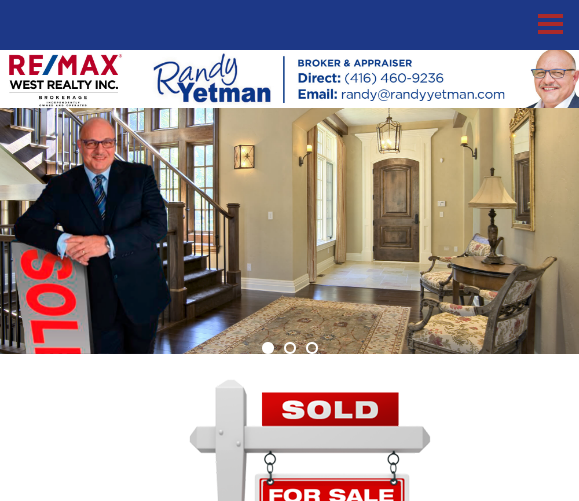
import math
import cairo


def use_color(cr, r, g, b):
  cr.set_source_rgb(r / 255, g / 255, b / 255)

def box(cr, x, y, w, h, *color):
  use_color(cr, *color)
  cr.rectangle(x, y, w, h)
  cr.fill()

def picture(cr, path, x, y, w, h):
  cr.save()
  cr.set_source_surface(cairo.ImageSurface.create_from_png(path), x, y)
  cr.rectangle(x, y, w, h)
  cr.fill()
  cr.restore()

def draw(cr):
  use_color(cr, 255, 255, 255)
  cr.paint()
  box(cr, 0, 0, 579, 50, 29, 56, 135)
  box(cr, 538, 14, 25, 4, 171, 42, 42)
  box(cr, 538, 22, 25, 4, 171, 42, 42)
  box(cr, 538, 30, 25, 4, 171, 42, 42)
  picture(cr, "img_01.png", 9, 50, 570, 58)
  picture(cr, "img_02.png", 0, 108, 579, 246)
  use_color(cr, 255, 255, 255)
  cr.arc(268, 348, 5, 0, 2 * math.pi)
  cr.fill_preserve()
  cr.stroke()
  cr.arc(290, 348, 5, 0, 2 * math.pi)
  cr.stroke()
  cr.arc(312, 348, 5, 0, 2 * math.pi)
  cr.stroke()
  picture(cr, "img_03.png", 8, 116, 164, 238)
  picture(cr, "img_04.png", 189, 379, 242, 122)


surface = cairo.ImageSurface(cairo.FORMAT_RGB24, 579, 501)
cr = cairo.Context(surface)
options = cairo.FontOptions()
options.set_hint_metrics(cairo.HINT_METRICS_OFF)
options.set_hint_style(cairo.HINT_STYLE_NONE)
cr.set_font_options(options)
cr.set_miter_limit(4)
draw(cr)
surface.write_to_png("out.png")
